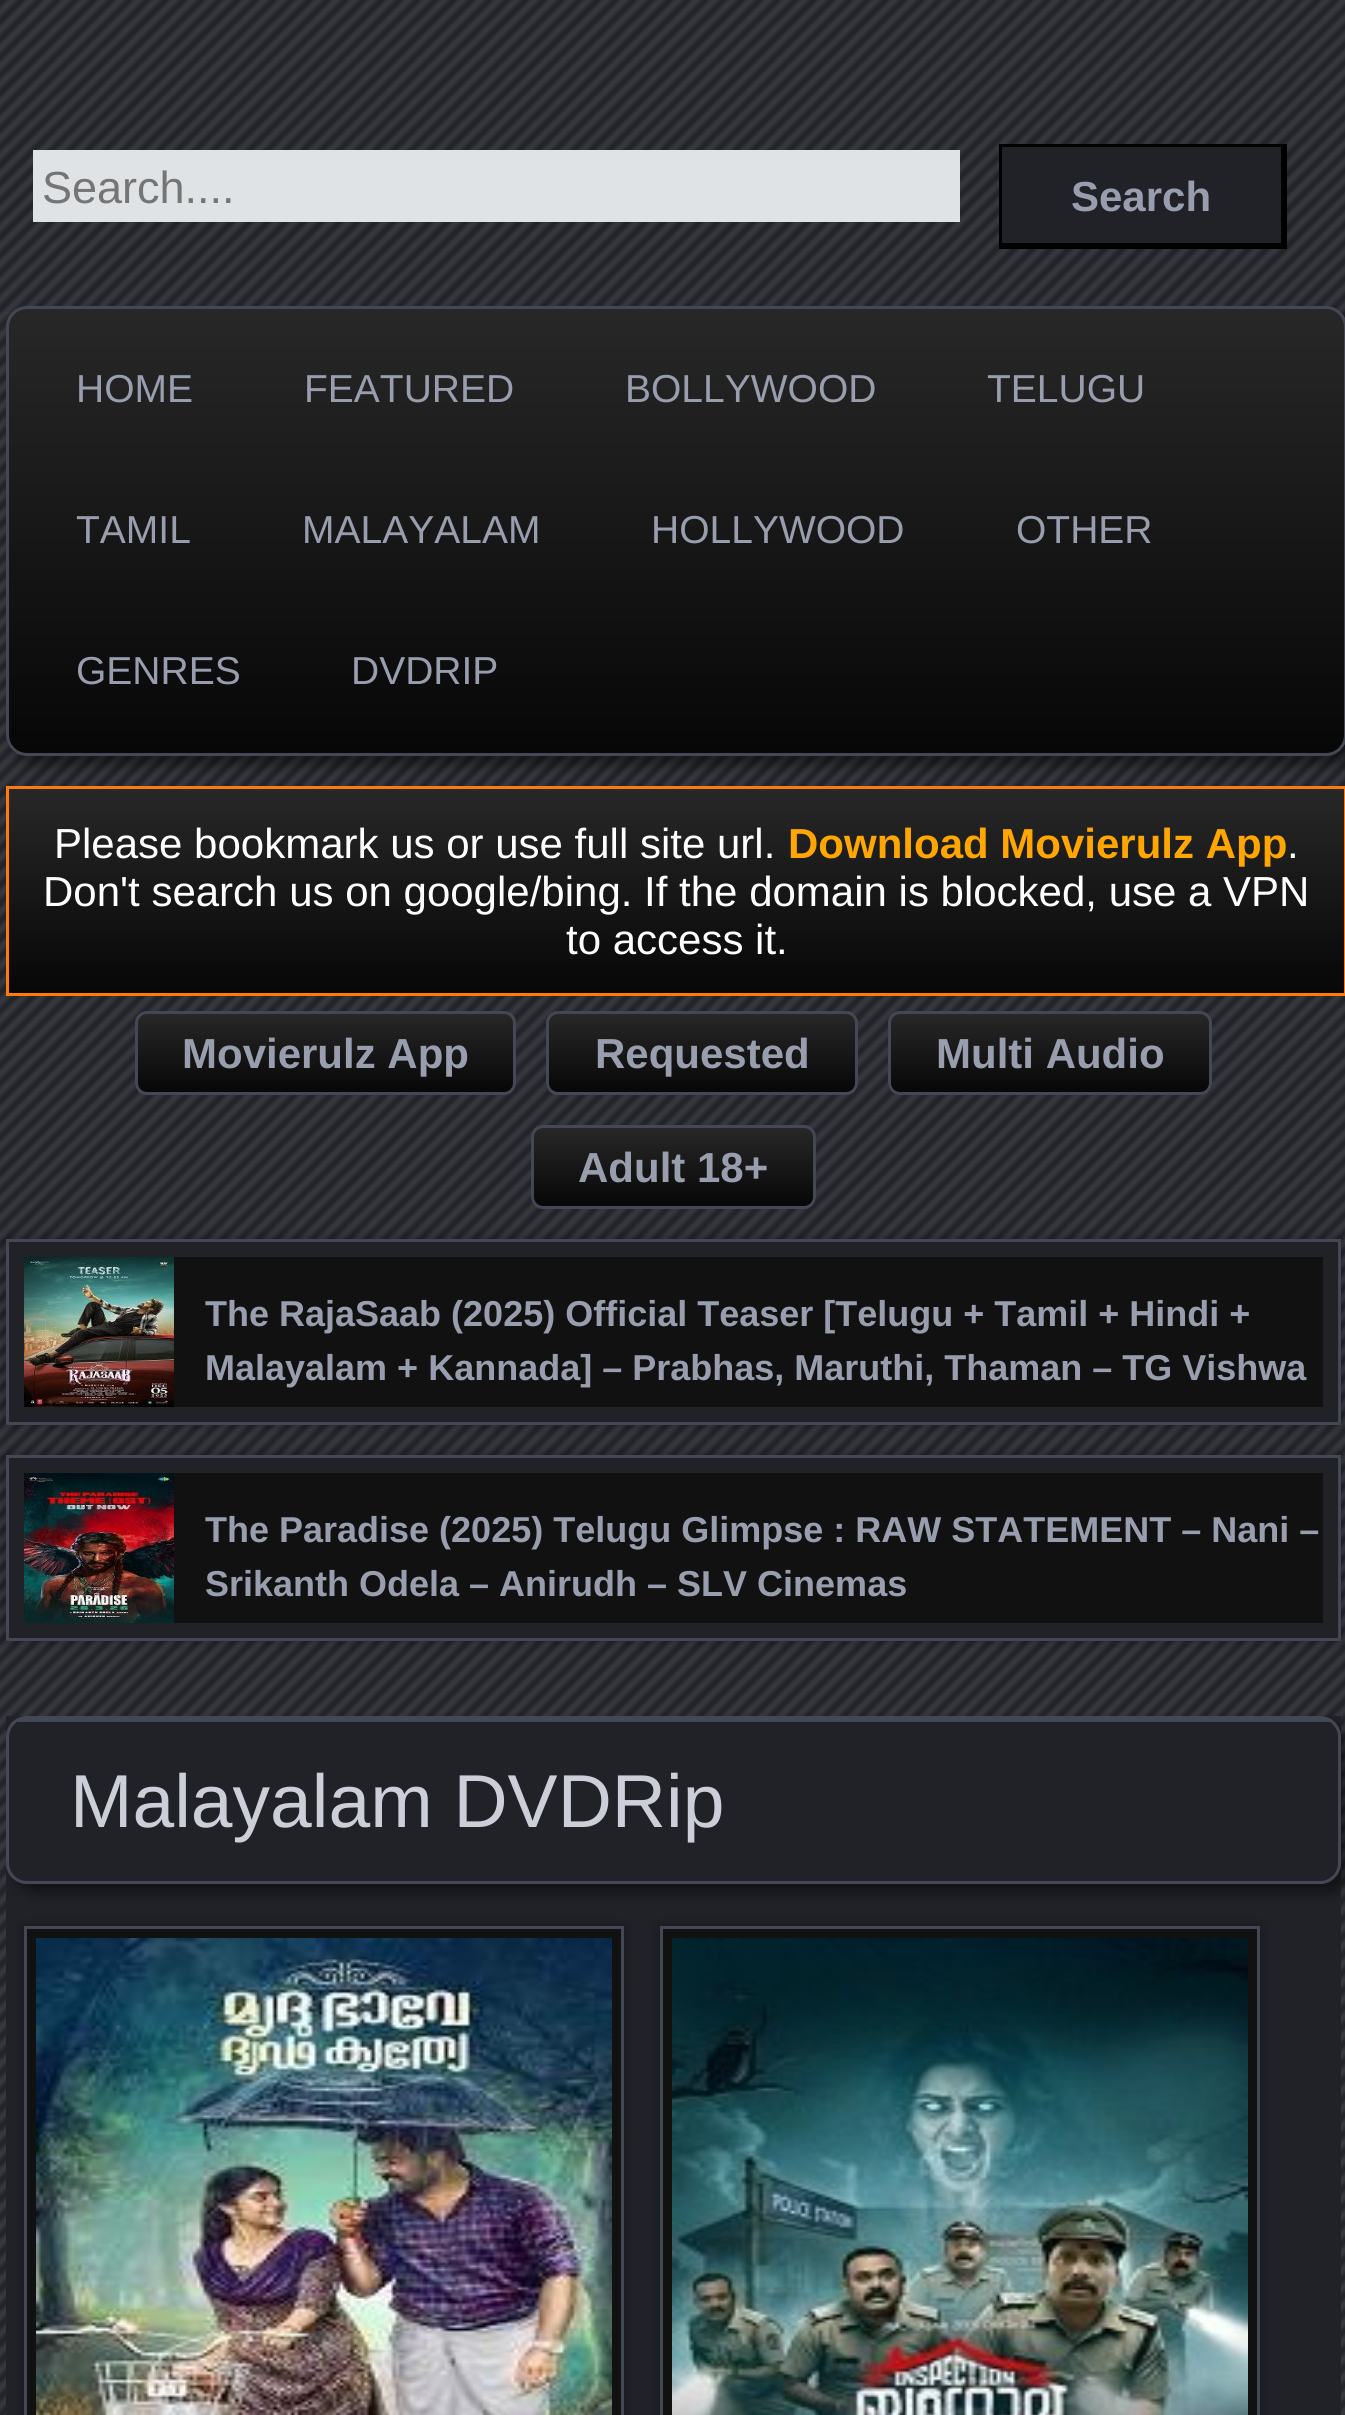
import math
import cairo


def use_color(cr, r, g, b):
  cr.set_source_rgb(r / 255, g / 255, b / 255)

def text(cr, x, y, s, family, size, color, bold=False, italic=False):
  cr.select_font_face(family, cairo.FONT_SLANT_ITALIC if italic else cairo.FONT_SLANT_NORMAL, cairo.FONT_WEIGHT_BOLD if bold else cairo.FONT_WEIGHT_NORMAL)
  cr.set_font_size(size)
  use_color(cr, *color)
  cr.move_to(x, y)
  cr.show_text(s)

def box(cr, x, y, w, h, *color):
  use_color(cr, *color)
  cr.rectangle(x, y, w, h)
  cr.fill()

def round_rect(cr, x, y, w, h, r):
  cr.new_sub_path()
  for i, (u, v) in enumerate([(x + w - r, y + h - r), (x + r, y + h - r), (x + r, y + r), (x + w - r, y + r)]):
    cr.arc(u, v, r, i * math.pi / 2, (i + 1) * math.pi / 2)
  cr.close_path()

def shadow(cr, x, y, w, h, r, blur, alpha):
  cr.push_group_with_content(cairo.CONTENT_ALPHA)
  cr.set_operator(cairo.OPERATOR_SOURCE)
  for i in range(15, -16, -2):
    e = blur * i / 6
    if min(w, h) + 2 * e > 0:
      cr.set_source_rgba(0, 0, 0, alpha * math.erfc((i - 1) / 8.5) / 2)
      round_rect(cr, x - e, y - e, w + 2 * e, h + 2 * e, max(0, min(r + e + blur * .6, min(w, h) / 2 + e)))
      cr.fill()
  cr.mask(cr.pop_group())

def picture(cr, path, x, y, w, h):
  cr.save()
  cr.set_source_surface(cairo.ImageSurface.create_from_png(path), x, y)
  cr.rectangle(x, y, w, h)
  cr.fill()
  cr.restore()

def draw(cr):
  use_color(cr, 32, 34, 40)
  cr.paint()
  picture(cr, "img_01.png", 0, 0, 1345, 2415)
  box(cr, 33, 150, 927, 72, 224, 227, 230)
  box(cr, 1002, 147, 279, 96, 32, 34, 40)
  box(cr, 999, 144, 288, 3, 0, 0, 0)
  box(cr, 1281, 144, 6, 105, 0, 0, 0)
  box(cr, 999, 243, 288, 6, 0, 0, 0)
  box(cr, 999, 144, 3, 105, 0, 0, 0)
  use_color(cr, 0, 0, 0)
  shadow(cr, 15, 315, 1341, 450, 21, 6.5, 0.45)
  cr.save()
  round_rect(cr, 6, 306, 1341, 450, 21)
  cr.clip()
  gradient = cairo.LinearGradient(677, 309, 677, 753)
  gradient.add_color_stop_rgba(0.01, 0.153, 0.153, 0.153, 1)
  gradient.add_color_stop_rgba(1, 0.027, 0.027, 0.027, 1)
  cr.set_source(gradient)
  cr.rectangle(6, 309, 1339, 444)
  cr.fill()
  cr.restore()
  round_rect(cr, 7.5, 307.5, 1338, 447, 19.5)
  use_color(cr, 68, 72, 85)
  cr.set_line_width(3)
  cr.stroke()
  gradient = cairo.LinearGradient(677, 789, 677, 993)
  gradient.add_color_stop_rgba(0.01, 0.153, 0.153, 0.153, 1)
  gradient.add_color_stop_rgba(1, 0.027, 0.027, 0.027, 1)
  cr.set_source(gradient)
  cr.rectangle(9, 789, 1335, 204)
  cr.fill()
  cr.rectangle(7.5, 787.5, 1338, 207)
  use_color(cr, 255, 123, 9)
  cr.stroke()
  cr.save()
  round_rect(cr, 135, 1011, 381, 84, 12)
  cr.clip()
  gradient = cairo.LinearGradient(326, 1014, 326, 1092)
  gradient.add_color_stop_rgba(0.01, 0.153, 0.153, 0.153, 1)
  gradient.add_color_stop_rgba(1, 0.027, 0.027, 0.027, 1)
  cr.set_source(gradient)
  cr.rectangle(135, 1014, 381, 78)
  cr.fill()
  cr.restore()
  round_rect(cr, 136.5, 1012.5, 378, 81, 10.5)
  use_color(cr, 68, 72, 85)
  cr.stroke()
  cr.save()
  round_rect(cr, 546, 1011, 312, 84, 12)
  cr.clip()
  gradient = cairo.LinearGradient(702, 1014, 702, 1092)
  gradient.add_color_stop_rgba(0.01, 0.153, 0.153, 0.153, 1)
  gradient.add_color_stop_rgba(1, 0.027, 0.027, 0.027, 1)
  cr.set_source(gradient)
  cr.rectangle(546, 1014, 312, 78)
  cr.fill()
  cr.restore()
  round_rect(cr, 547.5, 1012.5, 309, 81, 10.5)
  cr.stroke()
  cr.save()
  round_rect(cr, 888, 1011, 324, 84, 12)
  cr.clip()
  gradient = cairo.LinearGradient(1050, 1014, 1050, 1092)
  gradient.add_color_stop_rgba(0.01, 0.153, 0.153, 0.153, 1)
  gradient.add_color_stop_rgba(1, 0.027, 0.027, 0.027, 1)
  cr.set_source(gradient)
  cr.rectangle(888, 1014, 324, 78)
  cr.fill()
  cr.restore()
  round_rect(cr, 889.5, 1012.5, 321, 81, 10.5)
  cr.stroke()
  cr.save()
  round_rect(cr, 531, 1125, 285, 84, 12)
  cr.clip()
  gradient = cairo.LinearGradient(674, 1128, 674, 1206)
  gradient.add_color_stop_rgba(0.01, 0.153, 0.153, 0.153, 1)
  gradient.add_color_stop_rgba(1, 0.027, 0.027, 0.027, 1)
  cr.set_source(gradient)
  cr.rectangle(531, 1128, 285, 78)
  cr.fill()
  cr.restore()
  round_rect(cr, 532.5, 1126.5, 282, 81, 10.5)
  cr.stroke()
  use_color(cr, 0, 0, 0)
  shadow(cr, 6, 1239, 1335, 186, 0, 6, 0.3)
  use_color(cr, 32, 34, 40)
  cr.rectangle(7.5, 1240.5, 1332, 183)
  cr.fill_preserve()
  use_color(cr, 68, 72, 85)
  cr.stroke()
  picture(cr, "img_02.png", 24, 1257, 150, 150)
  box(cr, 174, 1257, 1149, 150, 17, 17, 17)
  use_color(cr, 0, 0, 0)
  shadow(cr, 6, 1455, 1335, 186, 0, 6, 0.3)
  use_color(cr, 32, 34, 40)
  cr.rectangle(7.5, 1456.5, 1332, 183)
  cr.fill_preserve()
  use_color(cr, 68, 72, 85)
  cr.stroke()
  picture(cr, "img_03.png", 24, 1473, 150, 150)
  box(cr, 174, 1473, 1149, 150, 17, 17, 17)
  box(cr, 6, 1716, 1335, 699, 32, 34, 40)
  cr.save()
  cr.set_fill_rule(cairo.FILL_RULE_EVEN_ODD)
  cr.new_path()
  cr.move_to(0, 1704)
  cr.line_to(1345, 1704)
  cr.line_to(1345, 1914)
  cr.line_to(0, 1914)
  cr.close_path()
  cr.move_to(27, 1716)
  cr.line_to(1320, 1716)
  cr.curve_to(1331.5, 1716, 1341, 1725.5, 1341, 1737)
  cr.line_to(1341, 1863)
  cr.curve_to(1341, 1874.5, 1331.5, 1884, 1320, 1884)
  cr.line_to(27, 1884)
  cr.curve_to(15.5, 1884, 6, 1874.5, 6, 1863)
  cr.line_to(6, 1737)
  cr.curve_to(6, 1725.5, 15.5, 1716, 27, 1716)
  cr.close_path()
  cr.clip()
  use_color(cr, 0, 0, 0)
  shadow(cr, 15, 1725, 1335, 168, 21, 6.5, 0.45)
  cr.restore()
  round_rect(cr, 7.5, 1717.5, 1332, 165, 19.5)
  use_color(cr, 68, 72, 85)
  cr.stroke()
  box(cr, 18, 1719, 1314, 3, 68, 72, 85)
  use_color(cr, 0, 0, 0)
  shadow(cr, 24, 1926, 600, 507, 0, 6, 0.3)
  use_color(cr, 17, 17, 17)
  cr.rectangle(25.5, 1927.5, 597, 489)
  cr.fill_preserve()
  use_color(cr, 68, 72, 85)
  cr.stroke()
  picture(cr, "img_04.png", 36, 1938, 576, 477)
  use_color(cr, 0, 0, 0)
  shadow(cr, 660, 1926, 600, 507, 0, 6, 0.3)
  use_color(cr, 17, 17, 17)
  cr.rectangle(661.5, 1927.5, 597, 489)
  cr.fill_preserve()
  use_color(cr, 68, 72, 85)
  cr.stroke()
  picture(cr, "img_05.png", 672, 1938, 576, 477)
  text(cr, 42, 203, "Search....", "Liberation Sans", 45, (117, 117, 117))
  text(cr, 1071, 211, "Search", "Liberation Sans", 42, (152, 158, 174), bold=True)
  text(cr, 76, 402, "HOME", "Liberation Sans", 39, (152, 158, 174))
  text(cr, 304, 402, "FEATURED", "Liberation Sans", 39, (152, 158, 174))
  text(cr, 625, 402, "BOLLYWOOD", "Liberation Sans", 39, (152, 158, 174))
  text(cr, 987, 402, "TELUGU", "Liberation Sans", 39, (152, 158, 174))
  text(cr, 76, 543, "TAMIL", "Liberation Sans", 39, (152, 158, 174))
  text(cr, 302, 543, "MALAYALAM", "Liberation Sans", 39, (152, 158, 174))
  text(cr, 651, 543, "HOLLYWOOD", "Liberation Sans", 39, (152, 158, 174))
  text(cr, 1016, 543, "OTHER", "Liberation Sans", 39, (152, 158, 174))
  text(cr, 76, 684, "GENRES", "Liberation Sans", 39, (152, 158, 174))
  text(cr, 351, 684, "DVDRIP", "Liberation Sans", 39, (152, 158, 174))
  text(cr, 54, 858, "Please bookmark us or use full site url.", "Liberation Sans", 42, (255, 255, 255))
  text(cr, 788, 858, "Download Movierulz App", "Liberation Sans", 42, (255, 166, 0), bold=True)
  text(cr, 1287, 858, ".", "Liberation Sans", 42, (255, 255, 255))
  text(cr, 43, 906, "Don't search us on google/bing. If the domain is blocked, use a VPN", "Liberation Sans", 42, (255, 255, 255))
  text(cr, 566, 954, "to access it.", "Liberation Sans", 42, (255, 255, 255))
  text(cr, 182, 1068, "Movierulz App", "Liberation Sans", 42, (152, 158, 174), bold=True)
  text(cr, 595, 1068, "Requested", "Liberation Sans", 42, (152, 158, 174), bold=True)
  text(cr, 936, 1068, "Multi Audio", "Liberation Sans", 42, (152, 158, 174), bold=True)
  text(cr, 578, 1182, "Adult 18+", "Liberation Sans", 42, (152, 158, 174), bold=True)
  text(cr, 205, 1326, "The RajaSaab (2025) Official Teaser [Telugu + Tamil + Hindi +", "Liberation Sans", 36, (152, 158, 174), bold=True)
  text(cr, 205, 1380, "Malayalam + Kannada] – Prabhas, Maruthi, Thaman – TG Vishwa", "Liberation Sans", 36, (152, 158, 174), bold=True)
  text(cr, 205, 1542, "The Paradise (2025) Telugu Glimpse : RAW STATEMENT – Nani –", "Liberation Sans", 36, (152, 158, 174), bold=True)
  text(cr, 205, 1596, "Srikanth Odela – Anirudh – SLV Cinemas", "Liberation Sans", 36, (152, 158, 174), bold=True)
  text(cr, 70, 1827, "Malayalam DVDRip", "Liberation Sans", 75, (204, 207, 215))


surface = cairo.ImageSurface(cairo.FORMAT_RGB24, 1345, 2415)
cr = cairo.Context(surface)
options = cairo.FontOptions()
options.set_hint_metrics(cairo.HINT_METRICS_OFF)
options.set_hint_style(cairo.HINT_STYLE_NONE)
cr.set_font_options(options)
cr.set_miter_limit(4)
draw(cr)
surface.write_to_png("out.png")
